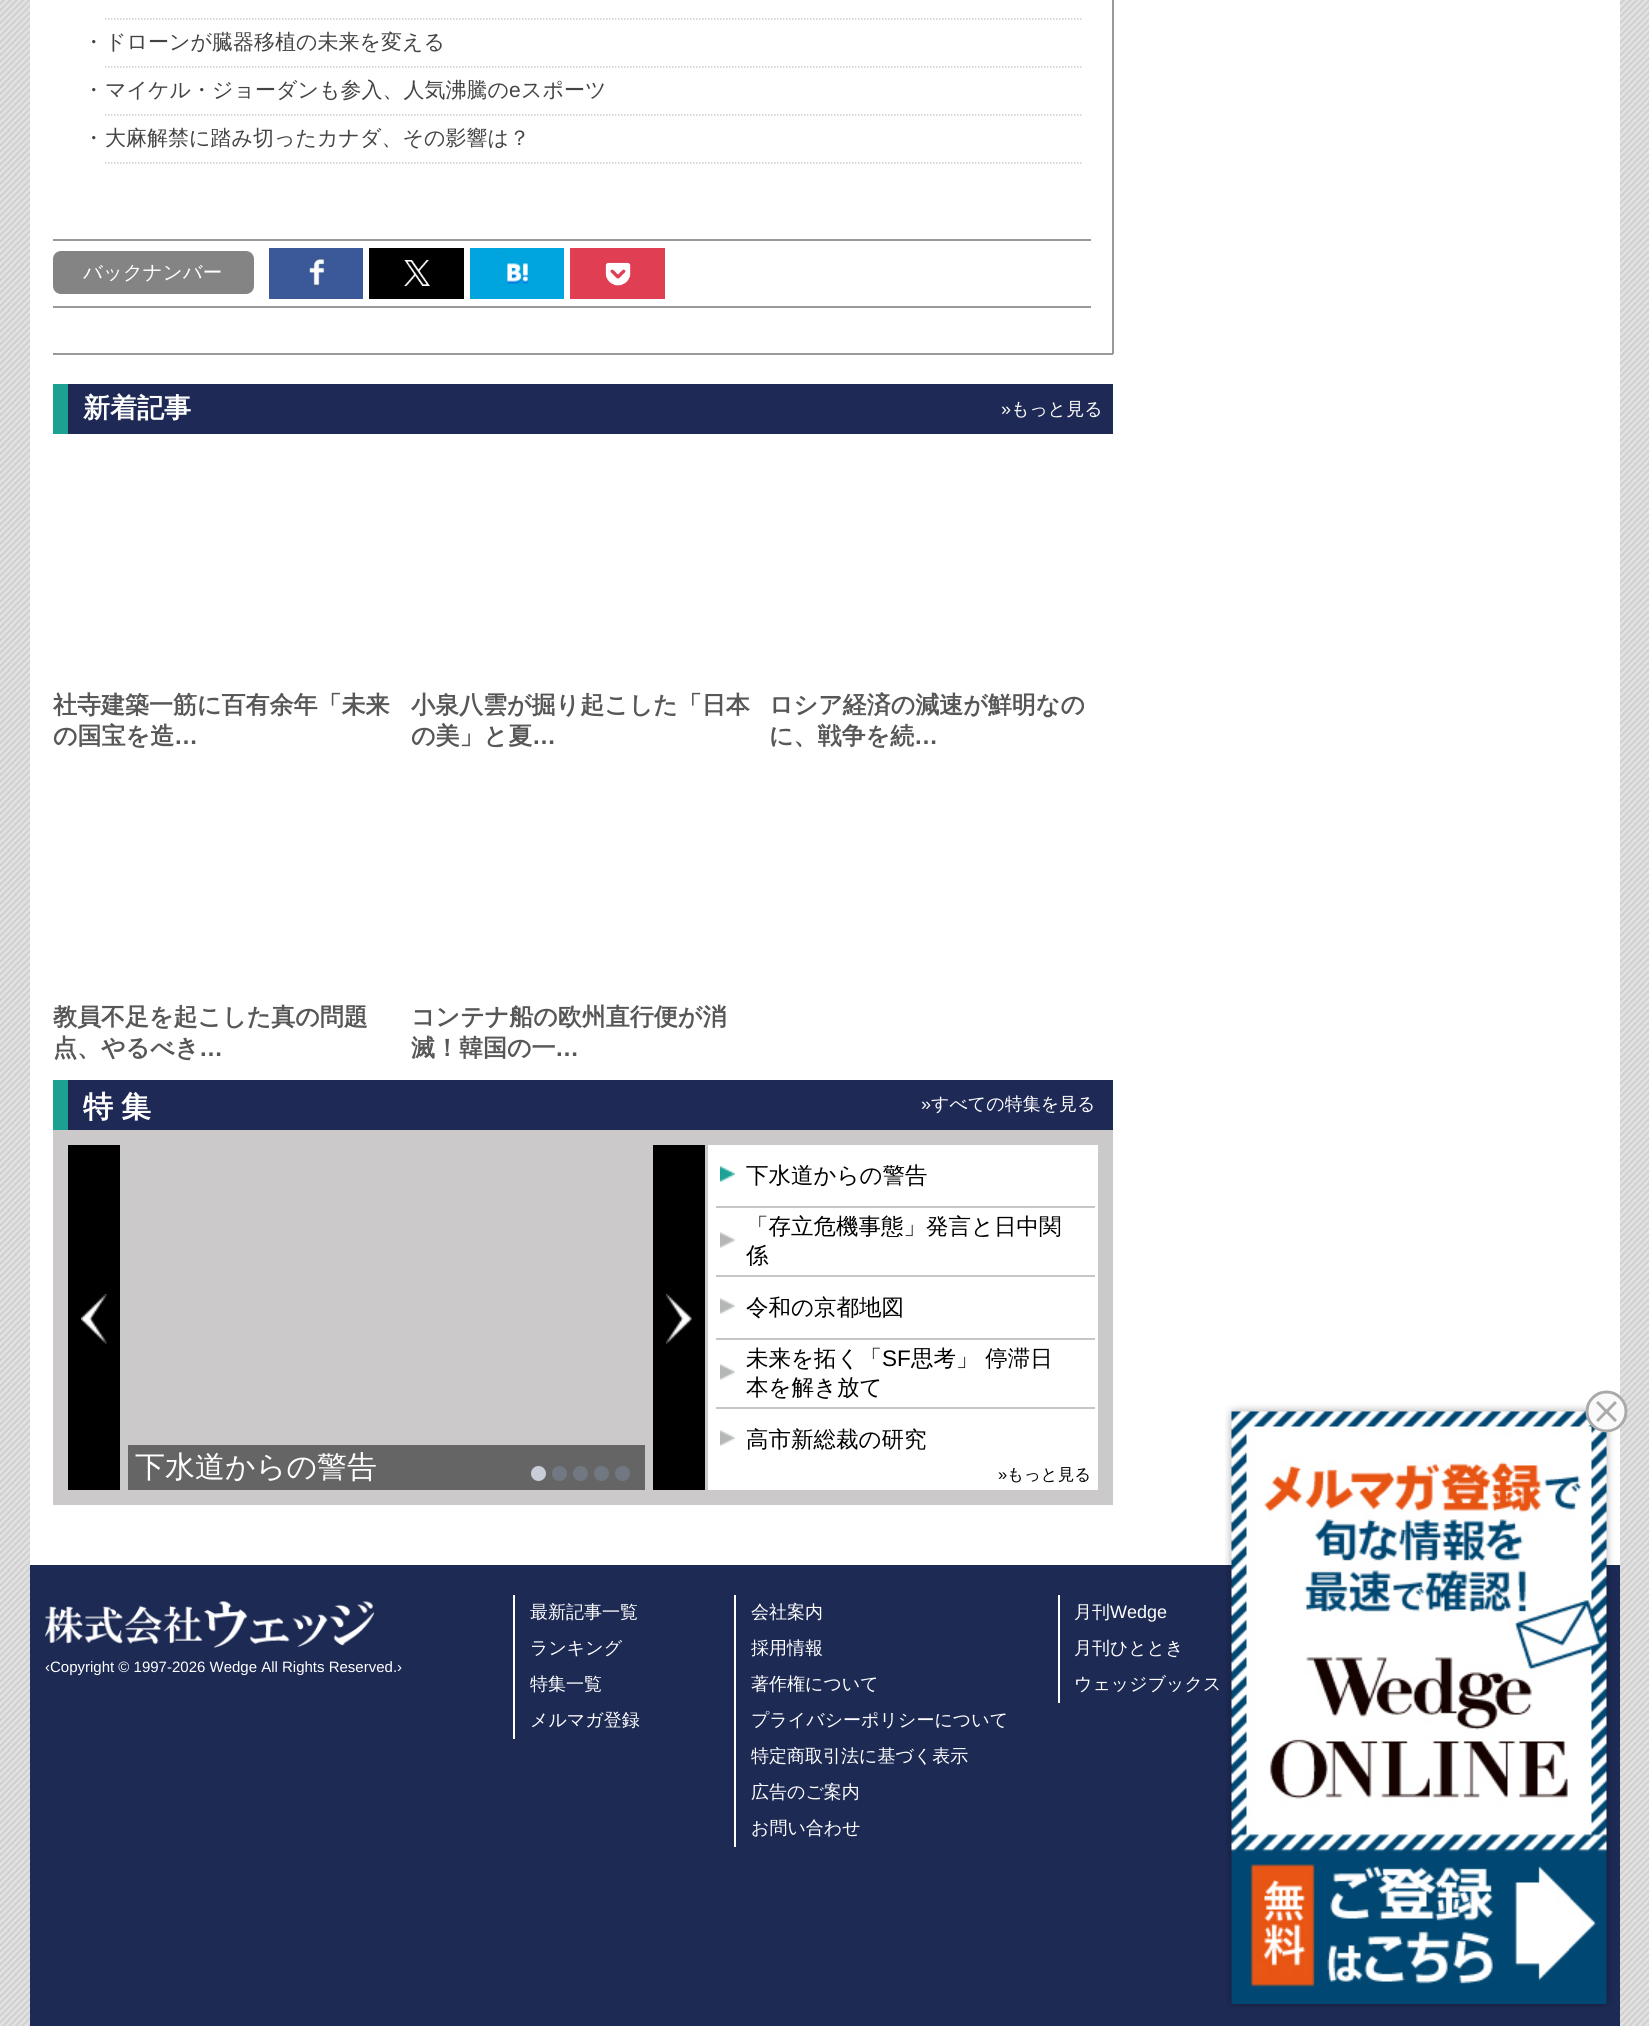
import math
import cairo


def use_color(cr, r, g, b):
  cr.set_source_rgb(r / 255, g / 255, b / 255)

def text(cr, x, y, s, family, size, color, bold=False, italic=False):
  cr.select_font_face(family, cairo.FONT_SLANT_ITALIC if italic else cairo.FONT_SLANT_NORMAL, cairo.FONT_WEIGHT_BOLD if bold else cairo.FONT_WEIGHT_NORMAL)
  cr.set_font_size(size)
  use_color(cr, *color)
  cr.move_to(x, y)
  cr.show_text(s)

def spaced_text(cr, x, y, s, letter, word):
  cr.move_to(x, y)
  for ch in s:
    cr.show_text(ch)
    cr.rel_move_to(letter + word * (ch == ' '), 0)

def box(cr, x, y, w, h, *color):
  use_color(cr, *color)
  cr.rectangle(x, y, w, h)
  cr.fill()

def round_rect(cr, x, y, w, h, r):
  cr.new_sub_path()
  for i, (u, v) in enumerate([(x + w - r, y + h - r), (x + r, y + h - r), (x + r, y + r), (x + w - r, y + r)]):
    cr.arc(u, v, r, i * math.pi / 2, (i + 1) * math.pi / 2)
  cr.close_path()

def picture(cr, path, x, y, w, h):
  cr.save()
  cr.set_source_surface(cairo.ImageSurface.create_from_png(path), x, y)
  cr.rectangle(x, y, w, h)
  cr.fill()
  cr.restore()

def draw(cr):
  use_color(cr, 255, 255, 255)
  cr.paint()
  picture(cr, "img_01.png", 0, 0, 1649, 2026)
  box(cr, 30, 0, 1590, 1565, 255, 255, 255)
  box(cr, 1112, 0, 2, 354, 153, 153, 153)
  box(cr, 53, 353, 1060, 2, 153, 153, 153)
  cr.new_path()
  cr.move_to(105, 19)
  cr.line_to(1081.5, 19)
  use_color(cr, 204, 204, 204)
  cr.set_line_width(1.5)
  cr.set_dash([1.5, 1.5])
  cr.stroke()
  cr.new_path()
  cr.move_to(105, 67)
  cr.line_to(1081.5, 67)
  cr.stroke()
  cr.new_path()
  cr.move_to(105, 115)
  cr.line_to(1081.5, 115)
  cr.stroke()
  cr.new_path()
  cr.move_to(105, 163)
  cr.line_to(1081.5, 163)
  cr.stroke()
  box(cr, 53, 239, 1038, 2, 153, 153, 153)
  box(cr, 53, 306, 1038, 2, 153, 153, 153)
  use_color(cr, 132, 132, 132)
  round_rect(cr, 53, 251, 201, 43, 8)
  cr.fill()
  box(cr, 269, 248, 94, 51, 59, 89, 153)
  picture(cr, "img_02.png", 308, 258, 17, 30)
  box(cr, 369, 248, 95, 51, 0, 0, 0)
  picture(cr, "img_03.png", 404, 260, 26, 26)
  box(cr, 470, 248, 94, 51, 0, 164, 222)
  picture(cr, "img_04.png", 495, 250, 33, 44)
  box(cr, 570, 248, 95, 51, 224, 62, 83)
  picture(cr, "img_05.png", 605, 262, 26, 24)
  box(cr, 68, 384, 1045, 50, 30, 42, 85)
  box(cr, 53, 384, 15, 50, 28, 160, 146)
  box(cr, 53, 1130, 1060, 375, 204, 201, 203)
  box(cr, 68, 1080, 1045, 50, 30, 42, 85)
  box(cr, 53, 1080, 15, 50, 28, 160, 146)
  box(cr, 68, 1145, 52, 345, 0, 0, 0)
  picture(cr, "img_06.png", 81, 1294, 26, 50)
  box(cr, 128, 1445, 517, 45, 102, 101, 102)
  use_color(cr, 200, 205, 215)
  cr.arc(538.5, 1473.5, 7.5, 0, 2 * math.pi)
  cr.fill()
  use_color(cr, 113, 120, 129)
  cr.arc(559.5, 1473.5, 7.5, 0, 2 * math.pi)
  cr.fill()
  cr.arc(580.5, 1473.5, 7.5, 0, 2 * math.pi)
  cr.fill()
  cr.arc(601.5, 1473.5, 7.5, 0, 2 * math.pi)
  cr.fill()
  cr.arc(622.5, 1473.5, 7.5, 0, 2 * math.pi)
  cr.fill()
  box(cr, 653, 1145, 52, 345, 0, 0, 0)
  picture(cr, "img_07.png", 666, 1294, 26, 50)
  box(cr, 708, 1145, 390, 345, 255, 255, 255)
  picture(cr, "img_08.png", 720, 1166, 15, 16)
  box(cr, 716, 1206, 379, 2, 199, 197, 199)
  picture(cr, "img_09.png", 720, 1232, 15, 16)
  box(cr, 716, 1275, 379, 2, 199, 197, 199)
  picture(cr, "img_09.png", 720, 1298, 15, 16)
  box(cr, 716, 1338, 379, 2, 199, 197, 199)
  picture(cr, "img_10.png", 720, 1364, 15, 16)
  box(cr, 716, 1407, 379, 2, 199, 197, 199)
  picture(cr, "img_11.png", 720, 1430, 15, 16)
  box(cr, 30, 1565, 1590, 461, 29, 42, 84)
  picture(cr, "img_12.png", 45, 1601, 329, 47)
  box(cr, 513, 1595, 2, 144, 255, 255, 255)
  box(cr, 734, 1595, 2, 252, 255, 255, 255)
  box(cr, 1058, 1595, 2, 108, 255, 255, 255)
  picture(cr, "img_13.png", 1225, 1390, 403, 619)
  text(cr, 83, 49, "・", "WenQuanYi Zen Hei Medium", 21, (68, 68, 68))
  text(cr, 105, 49, "ドローンが臓器移植の未来を変える", "WenQuanYi Zen Hei Medium", 21, (68, 68, 68))
  text(cr, 83, 97, "・", "WenQuanYi Zen Hei Medium", 21, (68, 68, 68))
  text(cr, 105, 97, "マイケル・ジョーダンも参入、人気沸騰の", "WenQuanYi Zen Hei Medium", 21, (68, 68, 68))
  text(cr, 509, 97, "e", "Liberation Sans", 21, (68, 68, 68))
  text(cr, 521, 97, "スポーツ", "WenQuanYi Zen Hei Medium", 21, (68, 68, 68))
  text(cr, 83, 145, "・", "WenQuanYi Zen Hei Medium", 21, (68, 68, 68))
  text(cr, 105, 145, "大麻解禁に踏み切ったカナダ、その影響は？", "WenQuanYi Zen Hei Medium", 21, (68, 68, 68))
  text(cr, 83, 279, "バックナンバー", "WenQuanYi Zen Hei Medium", 19.5, (255, 255, 255))
  text(cr, 83, 417, "新着記事", "WenQuanYi Zen Hei", 27, (255, 255, 255), bold=True)
  text(cr, 1001, 415, "»", "Liberation Sans", 18, (255, 255, 255))
  text(cr, 1011, 415, "もっと見る", "WenQuanYi Zen Hei Medium", 18, (255, 255, 255))
  text(cr, 53, 713, "社寺建築一筋に百有余年「未来", "WenQuanYi Zen Hei", 24, (87, 87, 87), bold=True)
  text(cr, 53, 744, "の国宝を造", "WenQuanYi Zen Hei", 24, (87, 87, 87), bold=True)
  text(cr, 174, 744, "…", "Liberation Sans", 24, (87, 87, 87), bold=True)
  text(cr, 411, 713, "小泉八雲が掘り起こした「日本", "WenQuanYi Zen Hei", 24, (87, 87, 87), bold=True)
  text(cr, 411, 744, "の美」と夏", "WenQuanYi Zen Hei", 24, (87, 87, 87), bold=True)
  text(cr, 532, 744, "…", "Liberation Sans", 24, (87, 87, 87), bold=True)
  text(cr, 769, 713, "ロシア経済の減速が鮮明なの", "WenQuanYi Zen Hei", 24, (87, 87, 87), bold=True)
  text(cr, 769, 744, "に、戦争を続", "WenQuanYi Zen Hei", 24, (87, 87, 87), bold=True)
  text(cr, 914, 744, "…", "Liberation Sans", 24, (87, 87, 87), bold=True)
  text(cr, 53, 1025, "教員不足を起こした真の問題", "WenQuanYi Zen Hei", 24, (87, 87, 87), bold=True)
  text(cr, 53, 1056, "点、やるべき", "WenQuanYi Zen Hei", 24, (87, 87, 87), bold=True)
  text(cr, 199, 1056, "…", "Liberation Sans", 24, (87, 87, 87), bold=True)
  text(cr, 411, 1025, "コンテナ船の欧州直行便が消", "WenQuanYi Zen Hei", 24, (87, 87, 87), bold=True)
  text(cr, 411, 1056, "滅！韓国の一", "WenQuanYi Zen Hei", 24, (87, 87, 87), bold=True)
  text(cr, 555, 1056, "…", "Liberation Sans", 24, (87, 87, 87), bold=True)
  cr.select_font_face("WenQuanYi Zen Hei", cairo.FONT_SLANT_NORMAL, cairo.FONT_WEIGHT_BOLD)
  cr.set_font_size(30)
  use_color(cr, 255, 255, 255)
  spaced_text(cr, 83, 1117, "特集", 8, 0)
  text(cr, 921, 1110, "»", "Liberation Sans", 18, (255, 255, 255))
  text(cr, 931, 1110, "すべての特集を見る", "WenQuanYi Zen Hei Medium", 18, (255, 255, 255))
  text(cr, 135, 1477, "下水道からの警告", "WenQuanYi Zen Hei Medium", 30, (255, 255, 255))
  text(cr, 746, 1183, "下水道からの警告", "WenQuanYi Zen Hei Medium", 22.5, (0, 0, 0))
  text(cr, 746, 1234, "「存立危機事態」発言と日中関", "WenQuanYi Zen Hei Medium", 22.5, (0, 0, 0))
  text(cr, 746, 1263, "係", "WenQuanYi Zen Hei Medium", 22.5, (0, 0, 0))
  text(cr, 746, 1315, "令和の京都地図", "WenQuanYi Zen Hei Medium", 22.5, (0, 0, 0))
  text(cr, 746, 1366, "未来を拓く「", "WenQuanYi Zen Hei Medium", 22.5, (0, 0, 0))
  text(cr, 882, 1366, "SF", "Liberation Sans", 22.5, (0, 0, 0))
  text(cr, 911, 1366, "思考」 停滞日", "WenQuanYi Zen Hei Medium", 22.5, (0, 0, 0))
  text(cr, 746, 1395, "本を解き放て", "WenQuanYi Zen Hei Medium", 22.5, (0, 0, 0))
  text(cr, 746, 1447, "高市新総裁の研究", "WenQuanYi Zen Hei Medium", 22.5, (0, 0, 0))
  text(cr, 998, 1480, "»", "Liberation Sans", 16.5, (0, 0, 0))
  text(cr, 1007, 1480, "もっと見る", "WenQuanYi Zen Hei Medium", 16.5, (0, 0, 0))
  text(cr, 45, 1672, "‹Copyright © 1997-2026 Wedge All Rights Reserved.›", "Liberation Sans", 15, (255, 255, 255))
  text(cr, 530, 1618, "最新記事一覧", "WenQuanYi Zen Hei Medium", 18, (255, 255, 255))
  text(cr, 530, 1654, "ランキング", "WenQuanYi Zen Hei Medium", 18, (255, 255, 255))
  text(cr, 530, 1690, "特集一覧", "WenQuanYi Zen Hei Medium", 18, (255, 255, 255))
  text(cr, 530, 1726, "メルマガ登録", "WenQuanYi Zen Hei Medium", 18, (255, 255, 255))
  text(cr, 751, 1618, "会社案内", "WenQuanYi Zen Hei Medium", 18, (255, 255, 255))
  text(cr, 751, 1654, "採用情報", "WenQuanYi Zen Hei Medium", 18, (255, 255, 255))
  text(cr, 751, 1690, "著作権について", "WenQuanYi Zen Hei Medium", 18, (255, 255, 255))
  text(cr, 751, 1726, "プライバシーポリシーについて", "WenQuanYi Zen Hei Medium", 18, (255, 255, 255))
  text(cr, 751, 1762, "特定商取引法に基づく表示", "WenQuanYi Zen Hei Medium", 18, (255, 255, 255))
  text(cr, 751, 1798, "広告のご案内", "WenQuanYi Zen Hei Medium", 18, (255, 255, 255))
  text(cr, 751, 1834, "お問い合わせ", "WenQuanYi Zen Hei Medium", 18, (255, 255, 255))
  text(cr, 1074, 1618, "月刊", "WenQuanYi Zen Hei Medium", 18, (255, 255, 255))
  text(cr, 1110, 1618, "Wedge", "Liberation Sans", 18, (255, 255, 255))
  text(cr, 1074, 1654, "月刊ひととき", "WenQuanYi Zen Hei Medium", 18, (255, 255, 255))
  text(cr, 1074, 1690, "ウェッジブックス", "WenQuanYi Zen Hei Medium", 18, (255, 255, 255))


surface = cairo.ImageSurface(cairo.FORMAT_RGB24, 1649, 2026)
cr = cairo.Context(surface)
options = cairo.FontOptions()
options.set_hint_metrics(cairo.HINT_METRICS_OFF)
options.set_hint_style(cairo.HINT_STYLE_NONE)
cr.set_font_options(options)
cr.set_miter_limit(4)
draw(cr)
surface.write_to_png("out.png")
